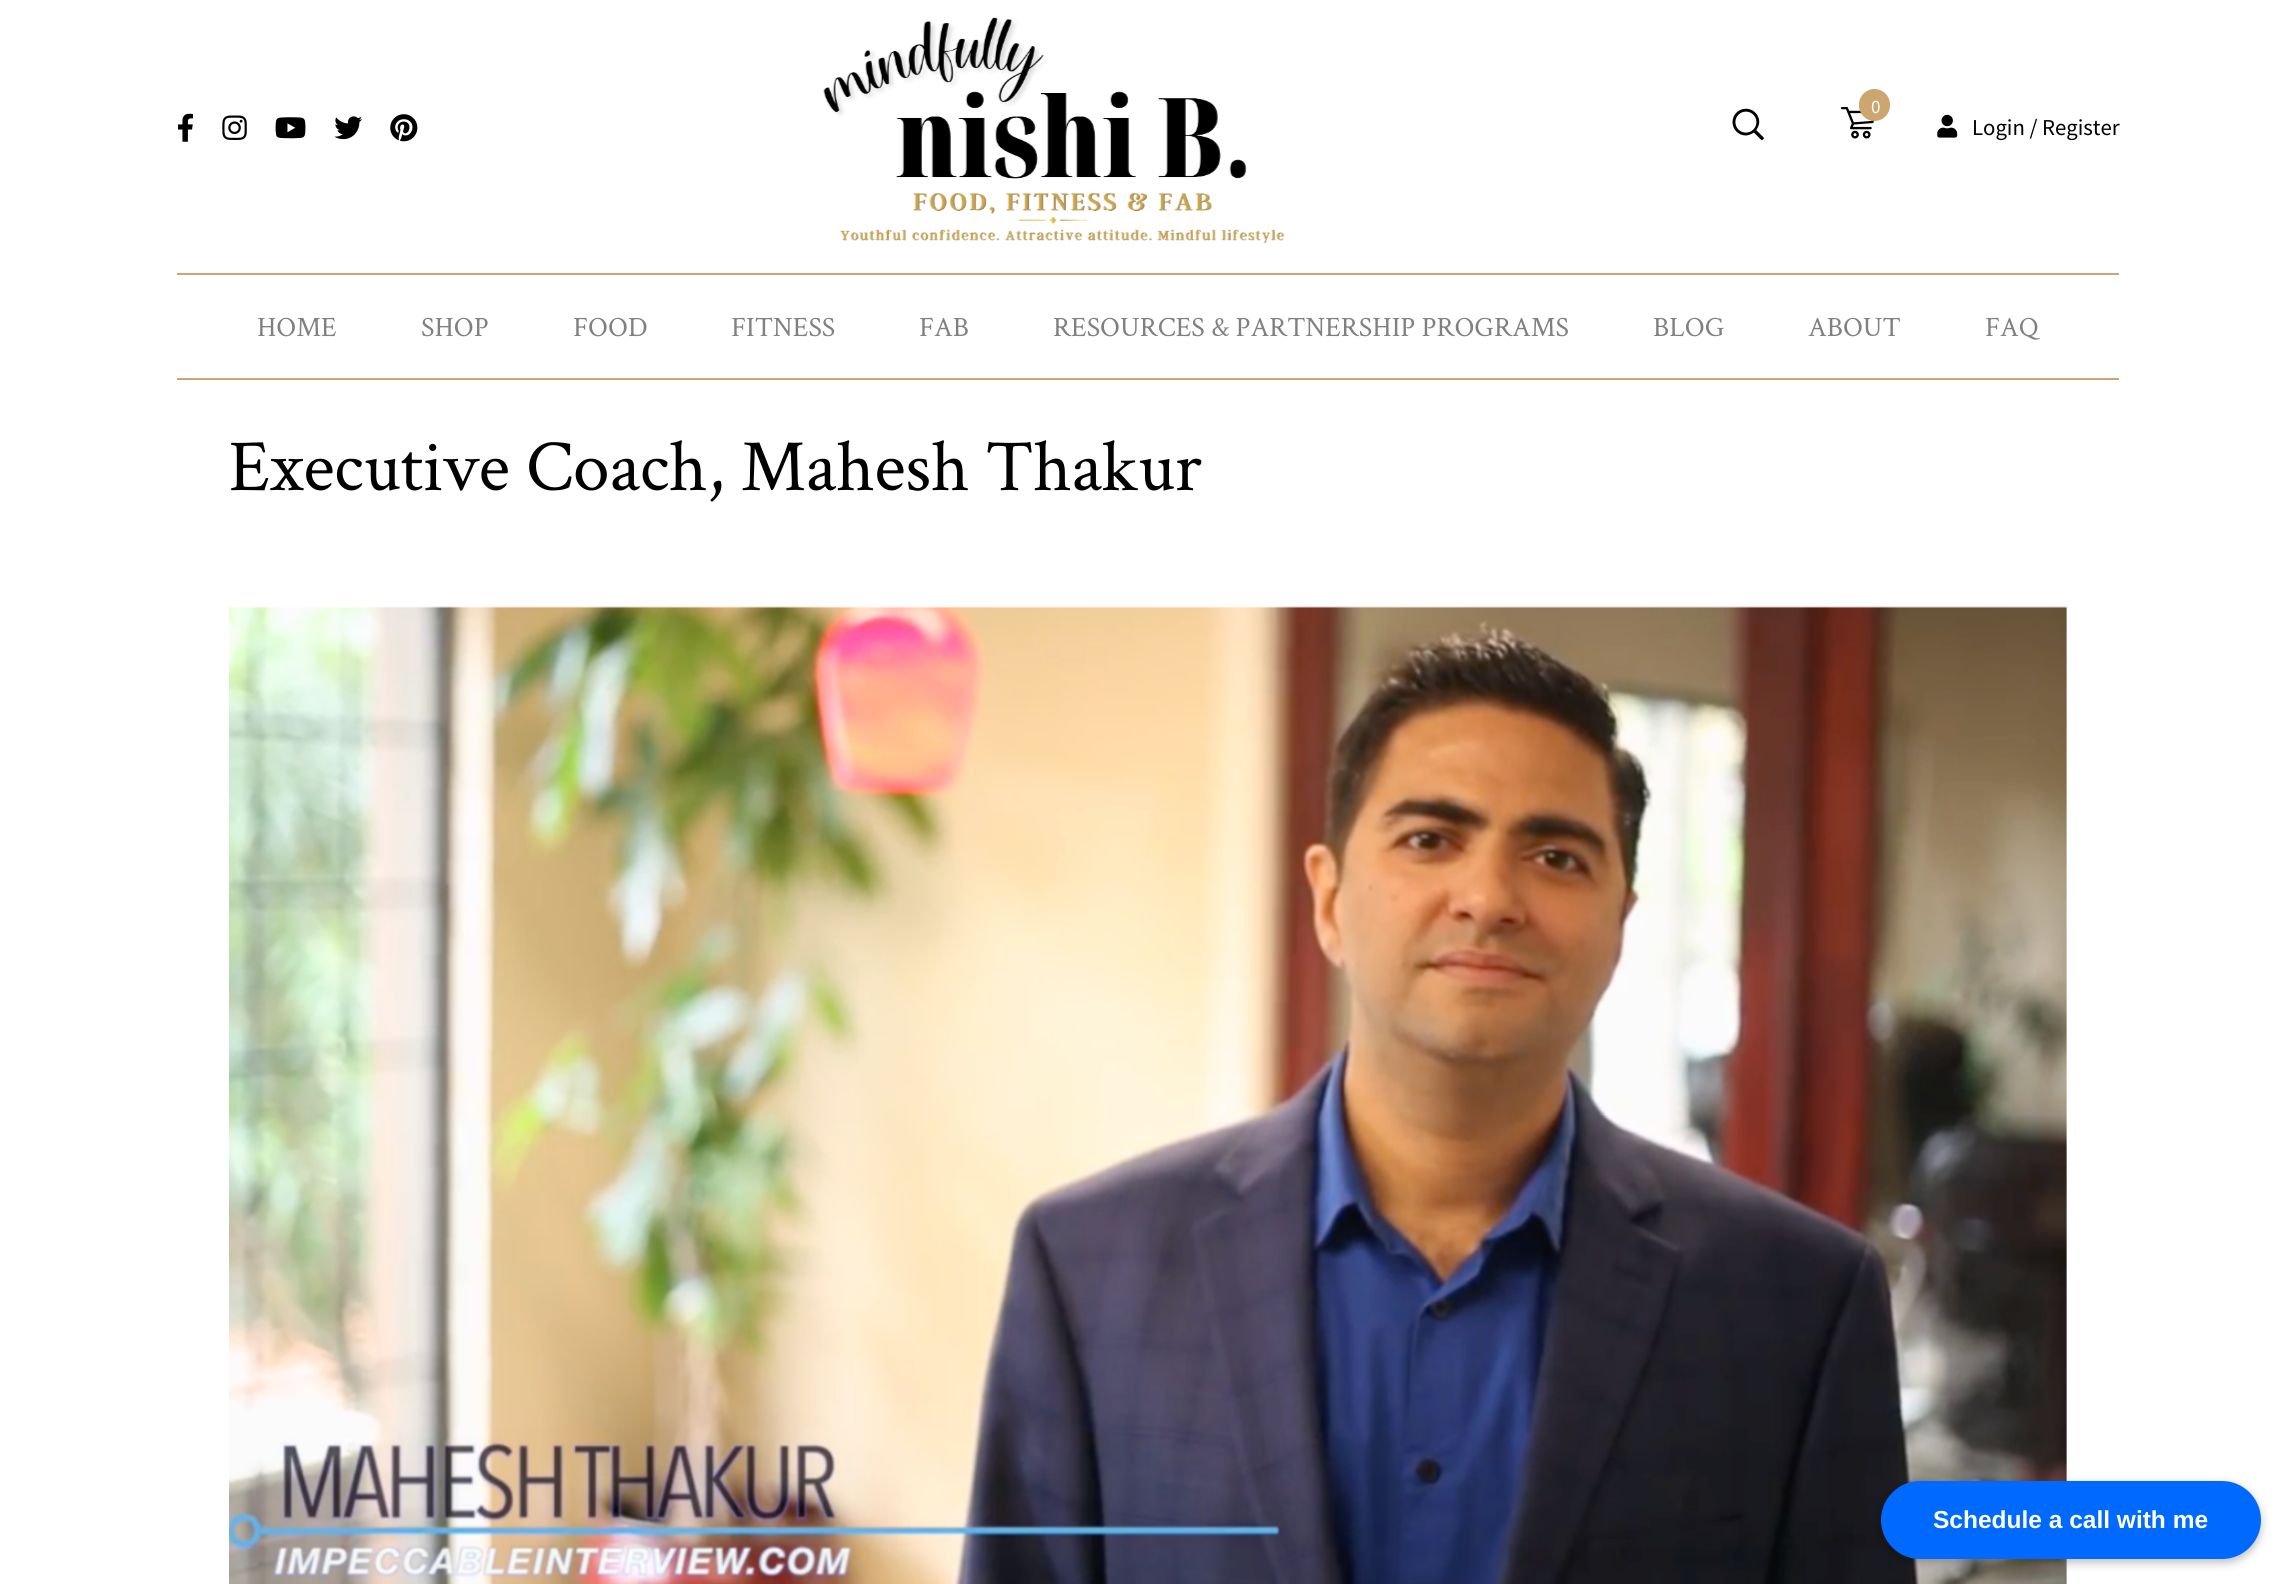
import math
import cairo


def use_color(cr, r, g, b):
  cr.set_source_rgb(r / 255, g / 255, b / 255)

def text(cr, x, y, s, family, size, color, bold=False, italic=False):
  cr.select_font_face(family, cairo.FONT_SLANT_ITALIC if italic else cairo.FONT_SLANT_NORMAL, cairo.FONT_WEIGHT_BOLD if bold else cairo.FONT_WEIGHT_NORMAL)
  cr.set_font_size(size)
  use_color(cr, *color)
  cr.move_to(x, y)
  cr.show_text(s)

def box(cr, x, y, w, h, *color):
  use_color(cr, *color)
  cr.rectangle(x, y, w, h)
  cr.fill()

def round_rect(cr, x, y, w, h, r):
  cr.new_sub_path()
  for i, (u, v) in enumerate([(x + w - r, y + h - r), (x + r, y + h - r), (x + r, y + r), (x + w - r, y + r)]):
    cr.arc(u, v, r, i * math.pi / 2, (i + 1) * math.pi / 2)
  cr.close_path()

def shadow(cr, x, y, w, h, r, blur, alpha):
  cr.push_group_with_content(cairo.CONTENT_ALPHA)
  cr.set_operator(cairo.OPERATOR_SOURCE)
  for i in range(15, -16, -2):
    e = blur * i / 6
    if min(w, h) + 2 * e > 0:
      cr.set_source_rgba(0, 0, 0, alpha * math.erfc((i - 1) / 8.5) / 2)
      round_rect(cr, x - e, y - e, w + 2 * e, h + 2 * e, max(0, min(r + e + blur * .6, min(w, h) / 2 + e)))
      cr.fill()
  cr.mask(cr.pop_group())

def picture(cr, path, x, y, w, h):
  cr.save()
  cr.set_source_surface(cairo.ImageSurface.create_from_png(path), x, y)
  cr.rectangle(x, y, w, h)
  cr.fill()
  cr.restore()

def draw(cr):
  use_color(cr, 255, 255, 255)
  cr.paint()
  picture(cr, "img_01.png", 178, 113, 15, 29)
  picture(cr, "img_02.png", 222, 115, 25, 25)
  picture(cr, "img_03.png", 275, 117, 31, 22)
  picture(cr, "img_04.png", 334, 116, 29, 24)
  picture(cr, "img_05.png", 390, 114, 28, 28)
  picture(cr, "img_06.png", 823, 17, 461, 226)
  picture(cr, "img_07.png", 1732, 108, 32, 33)
  picture(cr, "img_08.png", 1841, 107, 33, 32)
  use_color(cr, 203, 166, 111)
  round_rect(cr, 1859, 89, 31, 32, 15.5)
  cr.fill()
  picture(cr, "img_09.png", 1937, 114, 21, 24)
  box(cr, 177, 273, 1942, 2, 203, 166, 111)
  box(cr, 177, 378, 1942, 2, 203, 166, 111)
  picture(cr, "img_10.png", 229, 606, 1838, 978)
  use_color(cr, 0, 0, 0)
  shadow(cr, 1881, 1484, 380, 79, 39.5, 4.5, 0.25)
  use_color(cr, 0, 105, 255)
  round_rect(cr, 1881, 1481, 380, 78, 39)
  cr.fill()
  text(cr, 1871, 113, "0", "Source Sans Pro", 19, (255, 255, 255))
  text(cr, 1972, 135, "Login / Register", "Source Sans Pro", 22.75, (0, 0, 0))
  text(cr, 257, 336, "HOME", "Crimson Text", 28, (128, 128, 128))
  text(cr, 421, 336, "SHOP", "Crimson Text", 28, (128, 128, 128))
  text(cr, 573, 336, "FOOD", "Crimson Text", 28, (128, 128, 128))
  text(cr, 731, 336, "FITNESS", "Crimson Text", 28, (128, 128, 128))
  text(cr, 919, 336, "FAB", "Crimson Text", 28, (128, 128, 128))
  text(cr, 1053, 336, "RESOURCES & PARTNERSHIP PROGRAMS", "Crimson Text", 28, (128, 128, 128))
  text(cr, 1653, 336, "BLOG", "Crimson Text", 28, (128, 128, 128))
  text(cr, 1808, 336, "ABOUT", "Crimson Text", 28, (128, 128, 128))
  text(cr, 1985, 336, "FAQ", "Crimson Text", 28, (128, 128, 128))
  text(cr, 229, 490, "Executive Coach, Mahesh Thakur", "Crimson Text", 73.5, (0, 0, 0))
  text(cr, 1933, 1528, "Schedule a call with me", "Liberation Sans", 24.5, (255, 255, 255), bold=True)


surface = cairo.ImageSurface(cairo.FORMAT_RGB24, 2296, 1584)
cr = cairo.Context(surface)
options = cairo.FontOptions()
options.set_hint_metrics(cairo.HINT_METRICS_OFF)
options.set_hint_style(cairo.HINT_STYLE_NONE)
cr.set_font_options(options)
cr.set_miter_limit(4)
draw(cr)
surface.write_to_png("out.png")
